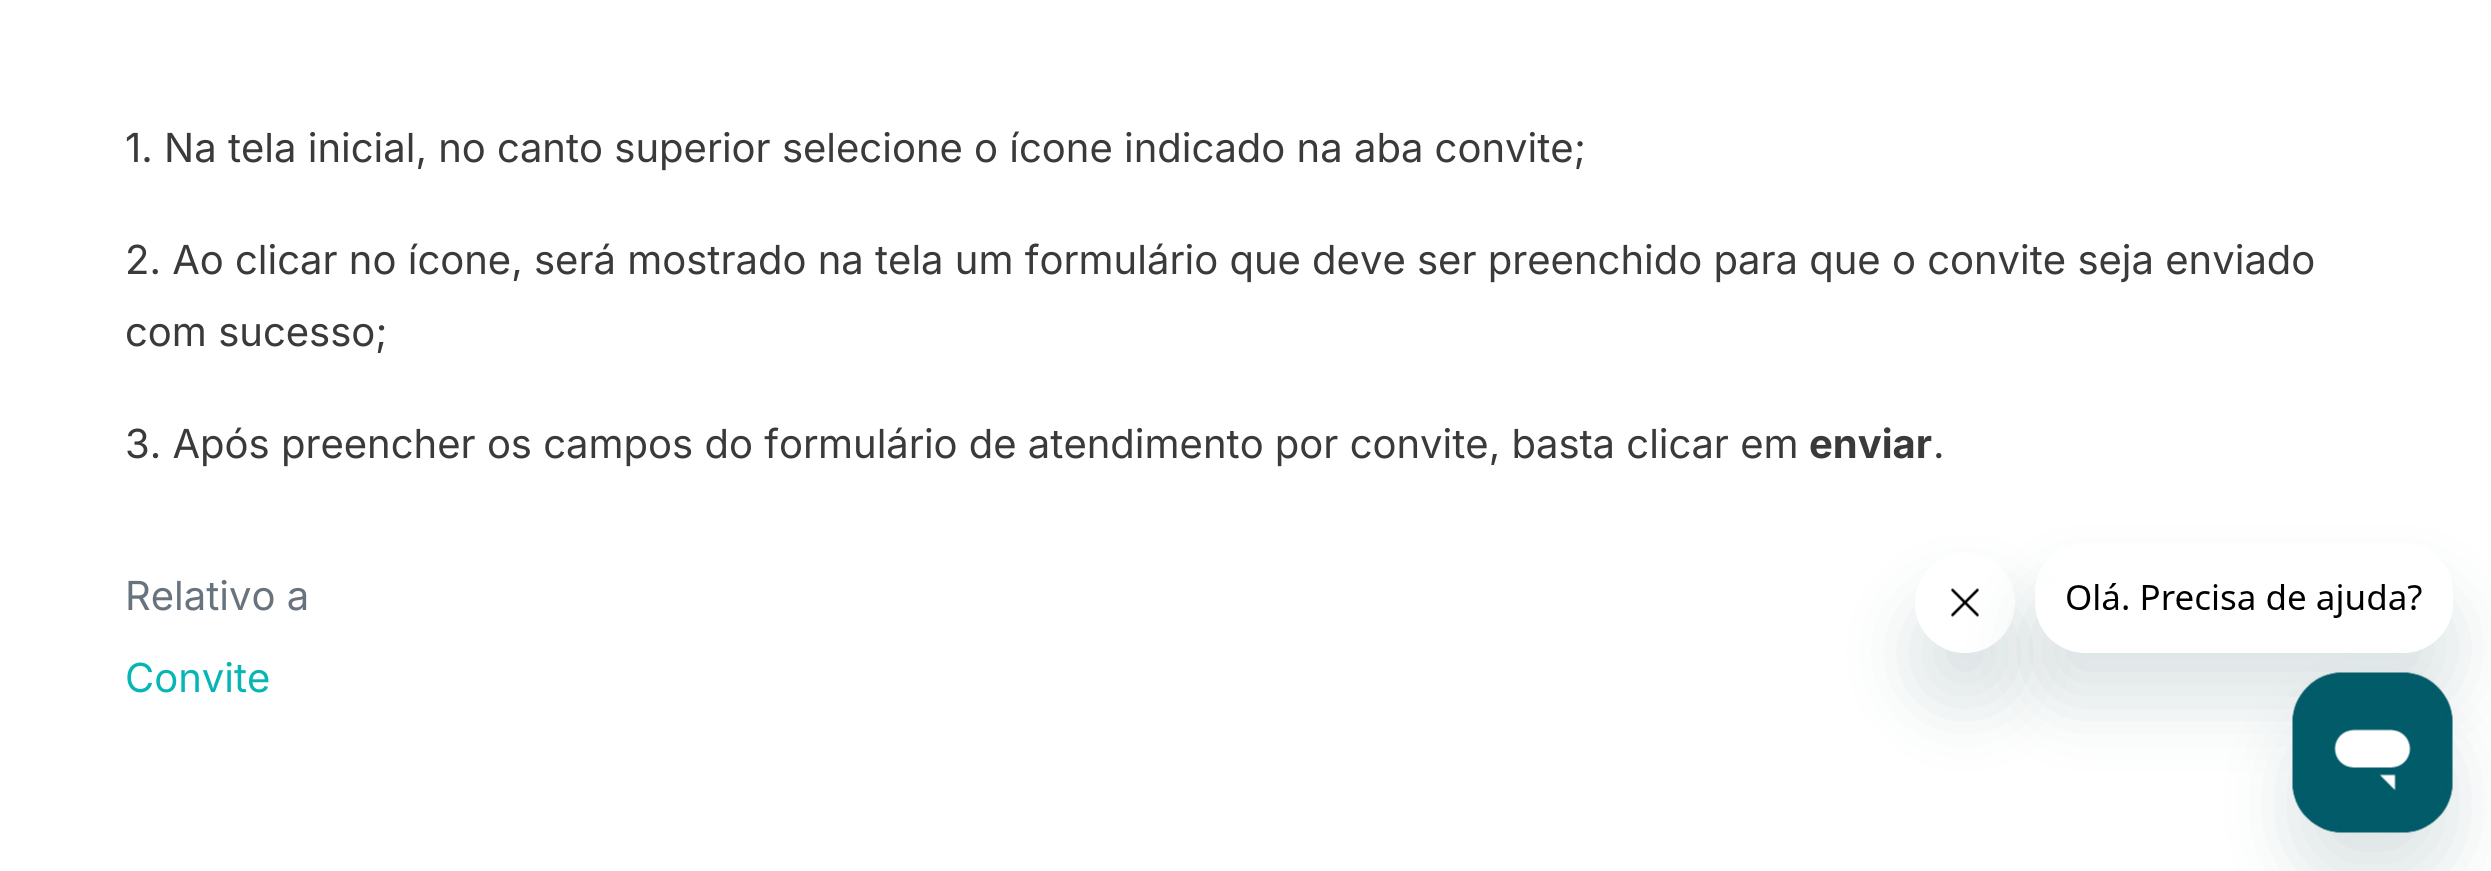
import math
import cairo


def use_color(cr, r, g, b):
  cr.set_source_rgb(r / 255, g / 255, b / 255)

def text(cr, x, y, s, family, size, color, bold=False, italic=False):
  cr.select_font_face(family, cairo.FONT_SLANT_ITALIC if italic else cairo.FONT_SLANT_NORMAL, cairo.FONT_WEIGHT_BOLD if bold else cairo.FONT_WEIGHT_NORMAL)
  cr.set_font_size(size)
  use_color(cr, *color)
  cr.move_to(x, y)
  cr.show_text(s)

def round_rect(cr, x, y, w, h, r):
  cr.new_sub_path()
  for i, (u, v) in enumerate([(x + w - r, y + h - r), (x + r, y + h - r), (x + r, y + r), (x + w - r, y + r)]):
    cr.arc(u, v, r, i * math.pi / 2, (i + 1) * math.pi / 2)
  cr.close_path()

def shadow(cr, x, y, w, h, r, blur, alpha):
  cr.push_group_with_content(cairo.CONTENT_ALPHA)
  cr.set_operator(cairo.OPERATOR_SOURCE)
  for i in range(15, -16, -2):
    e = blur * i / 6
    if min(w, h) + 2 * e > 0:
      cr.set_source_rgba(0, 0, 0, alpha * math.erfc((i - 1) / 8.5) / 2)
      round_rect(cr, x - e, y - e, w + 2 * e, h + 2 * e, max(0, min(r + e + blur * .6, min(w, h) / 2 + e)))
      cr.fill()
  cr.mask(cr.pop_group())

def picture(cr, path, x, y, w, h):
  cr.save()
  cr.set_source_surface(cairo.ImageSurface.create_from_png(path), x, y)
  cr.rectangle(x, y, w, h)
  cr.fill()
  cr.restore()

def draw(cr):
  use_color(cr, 255, 255, 255)
  cr.paint()
  cr.save()
  cr.set_fill_rule(cairo.FILL_RULE_EVEN_ODD)
  cr.new_path()
  cr.move_to(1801, 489)
  cr.line_to(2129, 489)
  cr.line_to(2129, 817)
  cr.line_to(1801, 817)
  cr.close_path()
  cr.move_to(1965, 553)
  cr.curve_to(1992.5, 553, 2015, 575.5, 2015, 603)
  cr.curve_to(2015, 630.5, 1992.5, 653, 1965, 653)
  cr.curve_to(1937.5, 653, 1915, 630.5, 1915, 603)
  cr.curve_to(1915, 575.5, 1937.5, 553, 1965, 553)
  cr.close_path()
  cr.clip()
  use_color(cr, 23, 73, 77)
  shadow(cr, 1915, 603, 100, 100, 50, 37.5, 0.15)
  cr.restore()
  picture(cr, "img_02.png", 1945, 588, 40, 65)
  cr.save()
  cr.set_fill_rule(cairo.FILL_RULE_EVEN_ODD)
  cr.new_path()
  cr.move_to(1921, 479)
  cr.line_to(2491, 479)
  cr.line_to(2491, 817)
  cr.line_to(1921, 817)
  cr.close_path()
  cr.move_to(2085, 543)
  cr.line_to(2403, 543)
  cr.curve_to(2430.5, 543, 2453, 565.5, 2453, 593)
  cr.line_to(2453, 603)
  cr.curve_to(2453, 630.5, 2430.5, 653, 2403, 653)
  cr.line_to(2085, 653)
  cr.curve_to(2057.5, 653, 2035, 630.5, 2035, 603)
  cr.line_to(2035, 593)
  cr.curve_to(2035, 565.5, 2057.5, 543, 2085, 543)
  cr.close_path()
  cr.clip()
  use_color(cr, 23, 73, 77)
  shadow(cr, 2035, 593, 418, 110, 50, 37.5, 0.15)
  cr.restore()
  picture(cr, "img_01.png", 2036, 583, 386, 68)
  use_color(cr, 23, 73, 77)
  shadow(cr, 2293, 723, 160, 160, 50, 37.5, 0.15)
  picture(cr, "img_03.png", 2292, 672, 161, 161)
  text(cr, 125, 162, "1. Na tela inicial, no canto superior selecione o ícone indicado na aba convite;", "Inter", 40, (58, 58, 58))
  text(cr, 125, 274, "2. Ao clicar no ícone, será mostrado na tela um formulário que deve ser preenchido para que o convite seja enviado", "Inter", 40, (58, 58, 58))
  text(cr, 125, 346, "com sucesso;", "Inter", 40, (58, 58, 58))
  text(cr, 125, 458, "3. Após preencher os campos do formulário de atendimento por convite, basta clicar em", "Inter", 40, (58, 58, 58))
  text(cr, 1809, 458, "enviar", "Inter", 40, (58, 58, 58), bold=True)
  text(cr, 1933, 458, ".", "Inter", 40, (58, 58, 58))
  text(cr, 125, 610, "Relativo a", "Inter", 40, (104, 115, 125))
  text(cr, 125, 692, "Convite", "Inter", 40, (7, 182, 180))


surface = cairo.ImageSurface(cairo.FORMAT_RGB24, 2491, 871)
cr = cairo.Context(surface)
options = cairo.FontOptions()
options.set_hint_metrics(cairo.HINT_METRICS_OFF)
options.set_hint_style(cairo.HINT_STYLE_NONE)
cr.set_font_options(options)
cr.set_miter_limit(4)
draw(cr)
surface.write_to_png("out.png")
